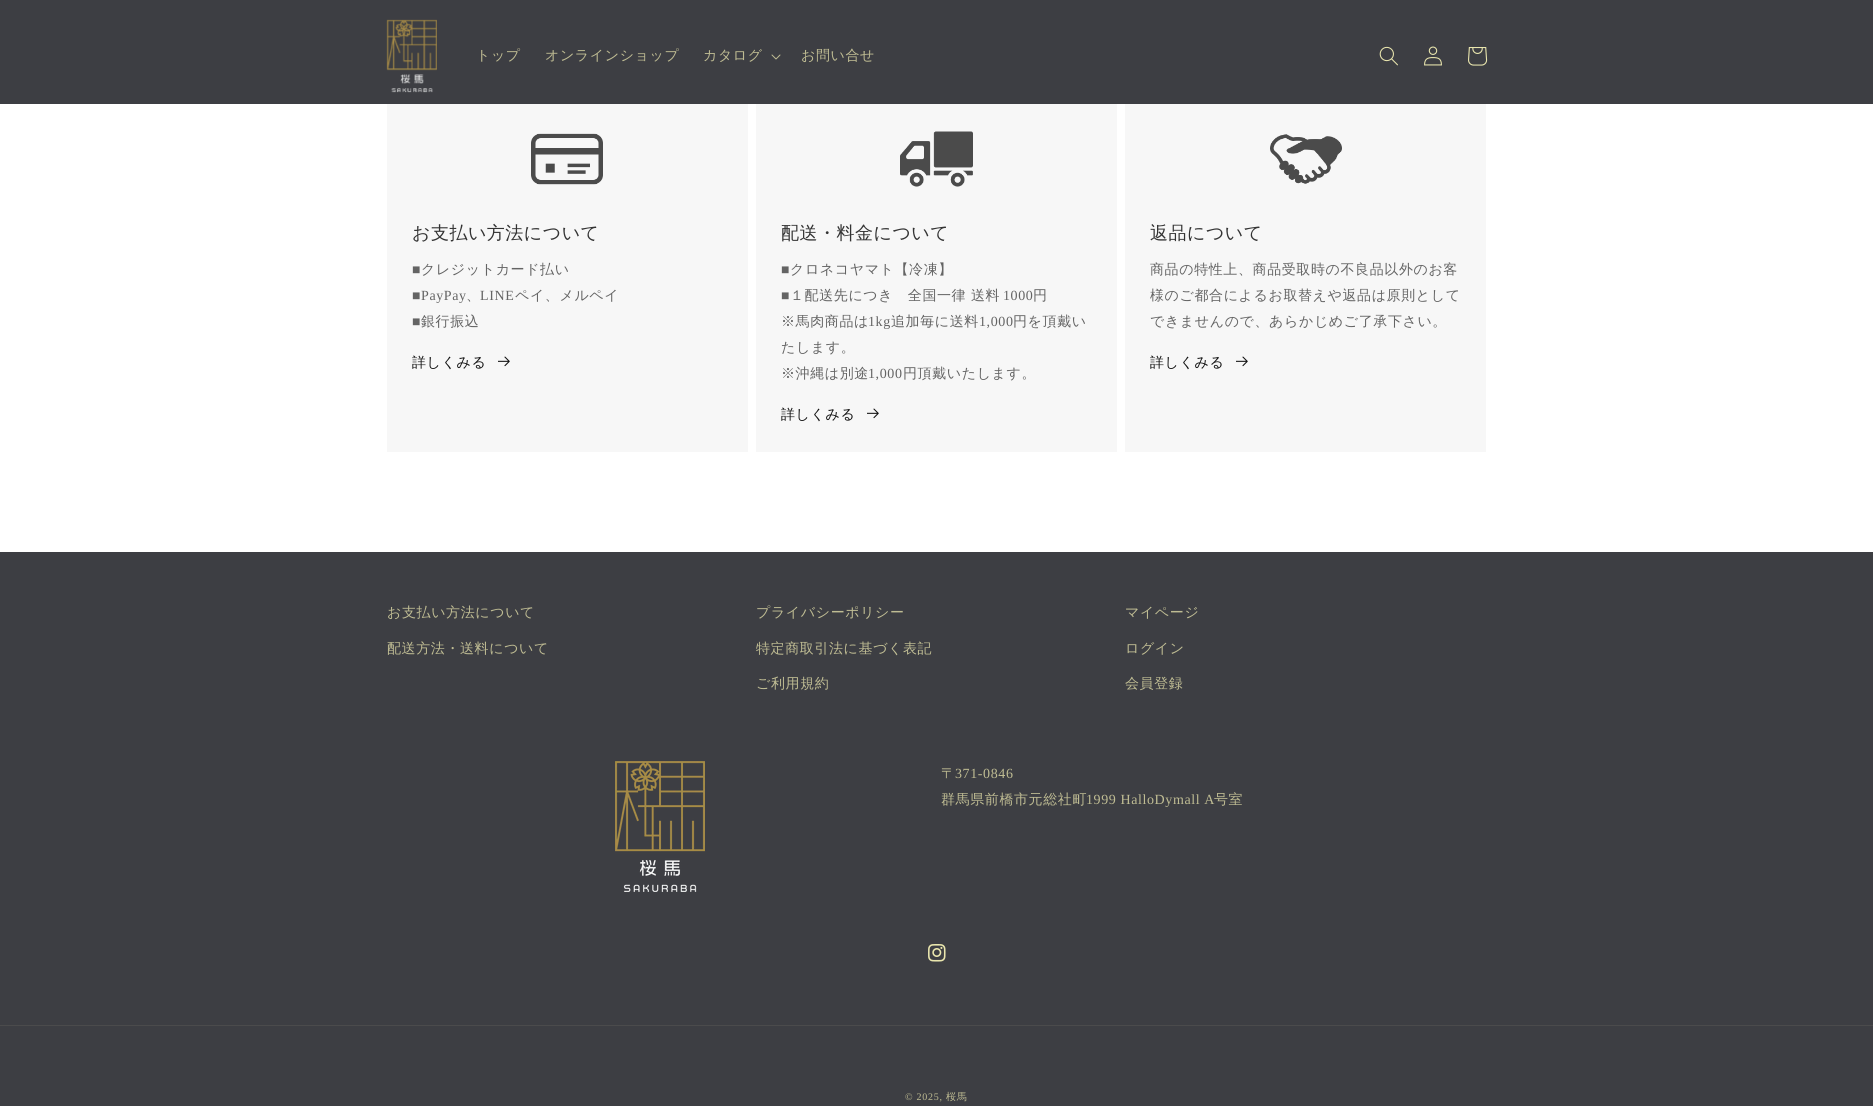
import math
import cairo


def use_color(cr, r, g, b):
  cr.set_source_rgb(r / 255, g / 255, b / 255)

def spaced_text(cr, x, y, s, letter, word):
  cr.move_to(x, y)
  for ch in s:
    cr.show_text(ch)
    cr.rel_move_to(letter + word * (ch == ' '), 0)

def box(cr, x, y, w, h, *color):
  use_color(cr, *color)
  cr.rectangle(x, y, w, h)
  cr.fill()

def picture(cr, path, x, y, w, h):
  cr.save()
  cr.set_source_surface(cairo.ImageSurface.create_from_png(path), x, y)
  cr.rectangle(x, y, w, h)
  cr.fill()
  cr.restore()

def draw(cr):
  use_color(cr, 255, 255, 255)
  cr.paint()
  box(cr, 0, 0, 1873, 104, 61, 62, 67)
  picture(cr, "img_01.png", 386, 19, 51, 74)
  picture(cr, "img_02.png", 771, 54, 10, 6)
  picture(cr, "img_03.png", 1379, 46, 19, 20)
  picture(cr, "img_04.png", 1424, 46, 18, 20)
  picture(cr, "img_05.png", 1468, 47, 20, 19)
  box(cr, 387, 104, 361, 348, 247, 247, 247)
  picture(cr, "img_06.png", 531, 133, 72, 52)
  picture(cr, "img_07.png", 498, 356, 12, 11)
  box(cr, 756, 104, 361, 348, 247, 247, 247)
  picture(cr, "img_08.png", 900, 131, 73, 56)
  picture(cr, "img_07.png", 867, 408, 12, 11)
  box(cr, 1125, 104, 361, 348, 247, 247, 247)
  picture(cr, "img_09.png", 1270, 134, 72, 50)
  picture(cr, "img_07.png", 1236, 356, 12, 11)
  box(cr, 0, 552, 1873, 554, 61, 62, 67)
  picture(cr, "img_10.png", 615, 761, 90, 131)
  picture(cr, "img_11.png", 928, 944, 18, 18)
  box(cr, 0, 1025, 1873, 1, 75, 75, 76)
  cr.select_font_face("WenQuanYi Zen Hei Medium")
  cr.set_font_size(14)
  use_color(cr, 191, 188, 147)
  spaced_text(cr, 476, 60, "トップ", 0.6, 0)
  spaced_text(cr, 545, 60, "オンラインショップ", 0.6, 0)
  spaced_text(cr, 703, 60, "カタログ", 0.6, 0)
  spaced_text(cr, 801, 60, "お問い合せ", 0.6, 0)
  cr.set_font_size(18)
  use_color(cr, 51, 51, 51)
  spaced_text(cr, 412, 239, "お支払い方法について", 0.5, 0)
  cr.select_font_face("Liberation Serif")
  cr.set_font_size(14)
  use_color(cr, 100, 100, 100)
  spaced_text(cr, 412, 274, "■", 0.6, 0)
  cr.select_font_face("WenQuanYi Zen Hei Medium")
  spaced_text(cr, 421, 274, "クレジットカード払い", 0.6, 0)
  cr.select_font_face("Liberation Serif")
  spaced_text(cr, 412, 300, "■PayPay", 0.6, 0)
  cr.select_font_face("WenQuanYi Zen Hei Medium")
  spaced_text(cr, 466, 300, "、", 0.6, 0)
  cr.select_font_face("Liberation Serif")
  spaced_text(cr, 480, 300, "LINE", 0.6, 0)
  cr.select_font_face("WenQuanYi Zen Hei Medium")
  spaced_text(cr, 515, 300, "ペイ、メルペイ", 0.6, 0)
  cr.select_font_face("Liberation Serif")
  spaced_text(cr, 412, 326, "■", 0.6, 0)
  cr.select_font_face("WenQuanYi Zen Hei Medium")
  spaced_text(cr, 421, 326, "銀行振込", 0.6, 0)
  use_color(cr, 18, 18, 18)
  spaced_text(cr, 412, 367, "詳しくみる", 0.6, 0)
  cr.set_font_size(18)
  use_color(cr, 51, 51, 51)
  spaced_text(cr, 781, 239, "配送・料金について", 0.5, 0)
  cr.select_font_face("Liberation Serif")
  cr.set_font_size(14)
  use_color(cr, 100, 100, 100)
  spaced_text(cr, 781, 274, "■", 0.6, 0)
  cr.select_font_face("WenQuanYi Zen Hei Medium")
  spaced_text(cr, 790, 274, "クロネコヤマト【冷凍】", 0.6, 0)
  cr.select_font_face("Liberation Serif")
  spaced_text(cr, 781, 300, "■", 0.6, 0)
  cr.select_font_face("WenQuanYi Zen Hei Medium")
  spaced_text(cr, 790, 300, "１配送先につき　全国一律 送料", 0.6, 0)
  cr.select_font_face("Liberation Serif")
  spaced_text(cr, 1003, 300, "1000", 0.6, 0)
  cr.select_font_face("WenQuanYi Zen Hei Medium")
  spaced_text(cr, 1033, 300, "円", 0.6, 0)
  spaced_text(cr, 781, 326, "※馬肉商品は", 0.6, 0)
  cr.select_font_face("Liberation Serif")
  spaced_text(cr, 868, 326, "1kg", 0.6, 0)
  cr.select_font_face("WenQuanYi Zen Hei Medium")
  spaced_text(cr, 891, 326, "追加毎に送料", 0.6, 0)
  cr.select_font_face("Liberation Serif")
  spaced_text(cr, 979, 326, "1,000", 0.6, 0)
  cr.select_font_face("WenQuanYi Zen Hei Medium")
  spaced_text(cr, 1013, 326, "円を頂戴い", 0.6, 0)
  spaced_text(cr, 781, 352, "たします。", 0.6, 0)
  spaced_text(cr, 781, 378, "※沖縄は別途", 0.6, 0)
  cr.select_font_face("Liberation Serif")
  spaced_text(cr, 868, 378, "1,000", 0.6, 0)
  cr.select_font_face("WenQuanYi Zen Hei Medium")
  spaced_text(cr, 903, 378, "円頂戴いたします。", 0.6, 0)
  use_color(cr, 18, 18, 18)
  spaced_text(cr, 781, 419, "詳しくみる", 0.6, 0)
  cr.set_font_size(18)
  use_color(cr, 51, 51, 51)
  spaced_text(cr, 1150, 239, "返品について", 0.5, 0)
  cr.set_font_size(14)
  use_color(cr, 100, 100, 100)
  spaced_text(cr, 1150, 274, "商品の特性上、商品受取時の不良品以外のお客", 0.6, 0)
  spaced_text(cr, 1150, 300, "様のご都合によるお取替えや返品は原則として", 0.6, 0)
  spaced_text(cr, 1150, 326, "できませんので、あらかじめご了承下さい。", 0.6, 0)
  use_color(cr, 18, 18, 18)
  spaced_text(cr, 1150, 367, "詳しくみる", 0.6, 0)
  use_color(cr, 191, 188, 147)
  spaced_text(cr, 387, 617, "お支払い方法について", 0.6, 0)
  spaced_text(cr, 387, 653, "配送方法・送料について", 0.6, 0)
  spaced_text(cr, 756, 617, "プライバシーポリシー", 0.6, 0)
  spaced_text(cr, 756, 653, "特定商取引法に基づく表記", 0.6, 0)
  spaced_text(cr, 756, 688, "ご利用規約", 0.6, 0)
  spaced_text(cr, 1125, 617, "マイページ", 0.6, 0)
  spaced_text(cr, 1125, 653, "ログイン", 0.6, 0)
  spaced_text(cr, 1125, 688, "会員登録", 0.6, 0)
  spaced_text(cr, 941, 778, "〒", 0.6, 0)
  cr.select_font_face("Liberation Serif")
  spaced_text(cr, 955, 778, "371-0846", 0.6, 0)
  cr.select_font_face("WenQuanYi Zen Hei Medium")
  spaced_text(cr, 941, 804, "群馬県前橋市元総社町", 0.6, 0)
  cr.select_font_face("Liberation Serif")
  spaced_text(cr, 1086, 804, "1999 HalloDymall A", 0.6, 0)
  cr.select_font_face("WenQuanYi Zen Hei Medium")
  spaced_text(cr, 1214, 804, "号室", 0.6, 0)
  cr.select_font_face("Liberation Serif")
  cr.set_font_size(10)
  spaced_text(cr, 905, 1100, "© 2025,", 0.75, 0)
  cr.select_font_face("WenQuanYi Zen Hei Medium")
  spaced_text(cr, 946, 1100, "桜馬", 0.75, 0)


surface = cairo.ImageSurface(cairo.FORMAT_RGB24, 1873, 1106)
cr = cairo.Context(surface)
options = cairo.FontOptions()
options.set_hint_metrics(cairo.HINT_METRICS_OFF)
options.set_hint_style(cairo.HINT_STYLE_NONE)
cr.set_font_options(options)
cr.set_miter_limit(4)
draw(cr)
surface.write_to_png("out.png")
